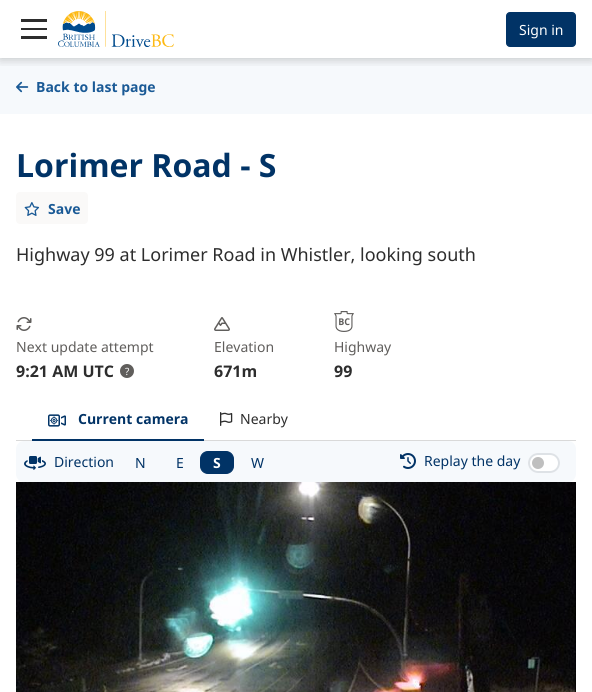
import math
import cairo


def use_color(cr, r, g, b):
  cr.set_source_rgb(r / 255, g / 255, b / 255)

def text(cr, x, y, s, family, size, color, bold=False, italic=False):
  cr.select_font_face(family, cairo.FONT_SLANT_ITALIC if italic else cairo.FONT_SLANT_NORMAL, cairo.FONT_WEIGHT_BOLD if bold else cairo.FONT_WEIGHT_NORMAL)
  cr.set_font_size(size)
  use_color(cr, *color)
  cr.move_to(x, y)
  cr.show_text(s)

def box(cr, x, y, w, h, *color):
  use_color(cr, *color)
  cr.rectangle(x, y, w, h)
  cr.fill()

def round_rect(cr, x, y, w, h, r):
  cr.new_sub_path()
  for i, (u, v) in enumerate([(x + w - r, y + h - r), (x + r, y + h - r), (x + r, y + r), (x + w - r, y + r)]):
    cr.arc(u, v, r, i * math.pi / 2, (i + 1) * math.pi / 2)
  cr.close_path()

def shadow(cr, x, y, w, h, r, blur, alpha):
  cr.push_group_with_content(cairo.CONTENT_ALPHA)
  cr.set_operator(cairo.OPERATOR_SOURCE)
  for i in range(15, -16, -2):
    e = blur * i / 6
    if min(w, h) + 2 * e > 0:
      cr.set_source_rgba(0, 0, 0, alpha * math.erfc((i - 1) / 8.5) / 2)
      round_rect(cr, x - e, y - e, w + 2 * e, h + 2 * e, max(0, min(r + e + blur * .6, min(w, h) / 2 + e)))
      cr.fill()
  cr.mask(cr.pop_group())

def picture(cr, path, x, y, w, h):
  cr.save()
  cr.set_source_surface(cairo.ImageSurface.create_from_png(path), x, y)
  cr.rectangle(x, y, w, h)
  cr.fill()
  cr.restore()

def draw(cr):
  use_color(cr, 255, 255, 255)
  cr.paint()
  box(cr, 0, 58, 592, 56, 246, 249, 252)
  cr.save()
  cr.rectangle(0, 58, 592, 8)
  cr.clip()
  use_color(cr, 0, 0, 0)
  shadow(cr, 0, 2, 592, 58, 0, 5, 0.2)
  cr.restore()
  box(cr, 21, 19, 26, 3, 45, 45, 45)
  box(cr, 21, 28, 26, 2, 45, 45, 45)
  box(cr, 21, 36, 26, 3, 45, 45, 45)
  picture(cr, "img_01.png", 58, 11, 116, 36)
  use_color(cr, 1, 51, 102)
  round_rect(cr, 506.5, 12.5, 69, 34, 3.5)
  cr.fill_preserve()
  cr.set_line_width(1)
  cr.stroke()
  picture(cr, "img_02.png", 16, 81, 13, 12)
  use_color(cr, 250, 249, 248)
  round_rect(cr, 16, 192, 72, 32, 4)
  cr.fill()
  picture(cr, "img_03.png", 24, 202, 16, 14)
  picture(cr, "img_04.png", 16, 317, 16, 14)
  use_color(cr, 96, 94, 92)
  cr.arc(127, 371, 7, 0, 2 * math.pi)
  cr.fill()
  picture(cr, "img_05.png", 214, 317, 16, 14)
  picture(cr, "img_06.png", 334, 311, 20, 21)
  box(cr, 16, 440, 560, 1, 217, 217, 217)
  box(cr, 32, 439, 172, 2, 1, 51, 102)
  picture(cr, "img_07.png", 48, 414, 18, 13)
  picture(cr, "img_08.png", 220, 412, 13, 14)
  use_color(cr, 246, 249, 252)
  round_rect(cr, 16, 441, 560, 41, 8)
  cr.fill()
  picture(cr, "img_09.png", 24, 456, 22, 14)
  use_color(cr, 1, 51, 102)
  round_rect(cr, 200.5, 451.5, 33, 22, 7.5)
  cr.fill_preserve()
  cr.stroke()
  picture(cr, "img_10.png", 400, 453, 16, 16)
  use_color(cr, 255, 255, 255)
  round_rect(cr, 528, 453, 32, 20, 10)
  cr.fill()
  use_color(cr, 191, 191, 191)
  cr.arc(538, 463, 6, 0, 2 * math.pi)
  cr.fill()
  round_rect(cr, 529, 454, 30, 18, 9)
  use_color(cr, 222, 226, 230)
  cr.set_line_width(2)
  cr.stroke()
  picture(cr, "img_11.png", 16, 482, 560, 210)
  text(cr, 519, 35, "Sign in", "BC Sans", 14, (255, 255, 255))
  text(cr, 36, 92, "Back to last page", "BC Sans", 14, (26, 90, 150), bold=True)
  text(cr, 16, 177, "Lorimer Road - S", "BC Sans", 32, (1, 51, 102), bold=True)
  text(cr, 48, 214, "Save", "BC Sans", 14, (26, 90, 150), bold=True)
  text(cr, 16, 261, "Highway 99 at Lorimer Road in Whistler, looking south", "BC Sans", 18, (45, 45, 45))
  text(cr, 16, 352, "Next update attempt", "BC Sans", 14, (96, 94, 92))
  text(cr, 16, 377, "9:21 AM UTC", "BC Sans", 16, (45, 45, 45), bold=True)
  text(cr, 125, 375, "?", "BC Sans", 10, (255, 255, 255))
  text(cr, 214, 352, "Elevation", "BC Sans", 14, (96, 94, 92))
  text(cr, 214, 377, "671m", "BC Sans", 16, (45, 45, 45), bold=True)
  text(cr, 334, 352, "Highway", "BC Sans", 14, (96, 94, 92))
  text(cr, 334, 377, "99", "BC Sans", 16, (45, 45, 45), bold=True)
  text(cr, 78, 424, "Current camera", "BC Sans", 14, (1, 51, 102), bold=True)
  text(cr, 240, 424, "Nearby", "BC Sans", 14, (45, 45, 45))
  text(cr, 54, 467, "Direction", "BC Sans", 14, (1, 51, 102))
  text(cr, 135, 468, "N", "BC Sans", 14, (1, 51, 102))
  text(cr, 176, 468, "E", "BC Sans", 14, (1, 51, 102))
  text(cr, 213, 468, "S", "BC Sans", 14, (255, 255, 255), bold=True)
  text(cr, 251, 468, "W", "BC Sans", 14, (1, 51, 102))
  text(cr, 424, 466, "Replay the day", "BC Sans", 14, (1, 51, 102))


surface = cairo.ImageSurface(cairo.FORMAT_RGB24, 592, 692)
cr = cairo.Context(surface)
options = cairo.FontOptions()
options.set_hint_metrics(cairo.HINT_METRICS_OFF)
options.set_hint_style(cairo.HINT_STYLE_NONE)
cr.set_font_options(options)
cr.set_miter_limit(4)
draw(cr)
surface.write_to_png("out.png")
